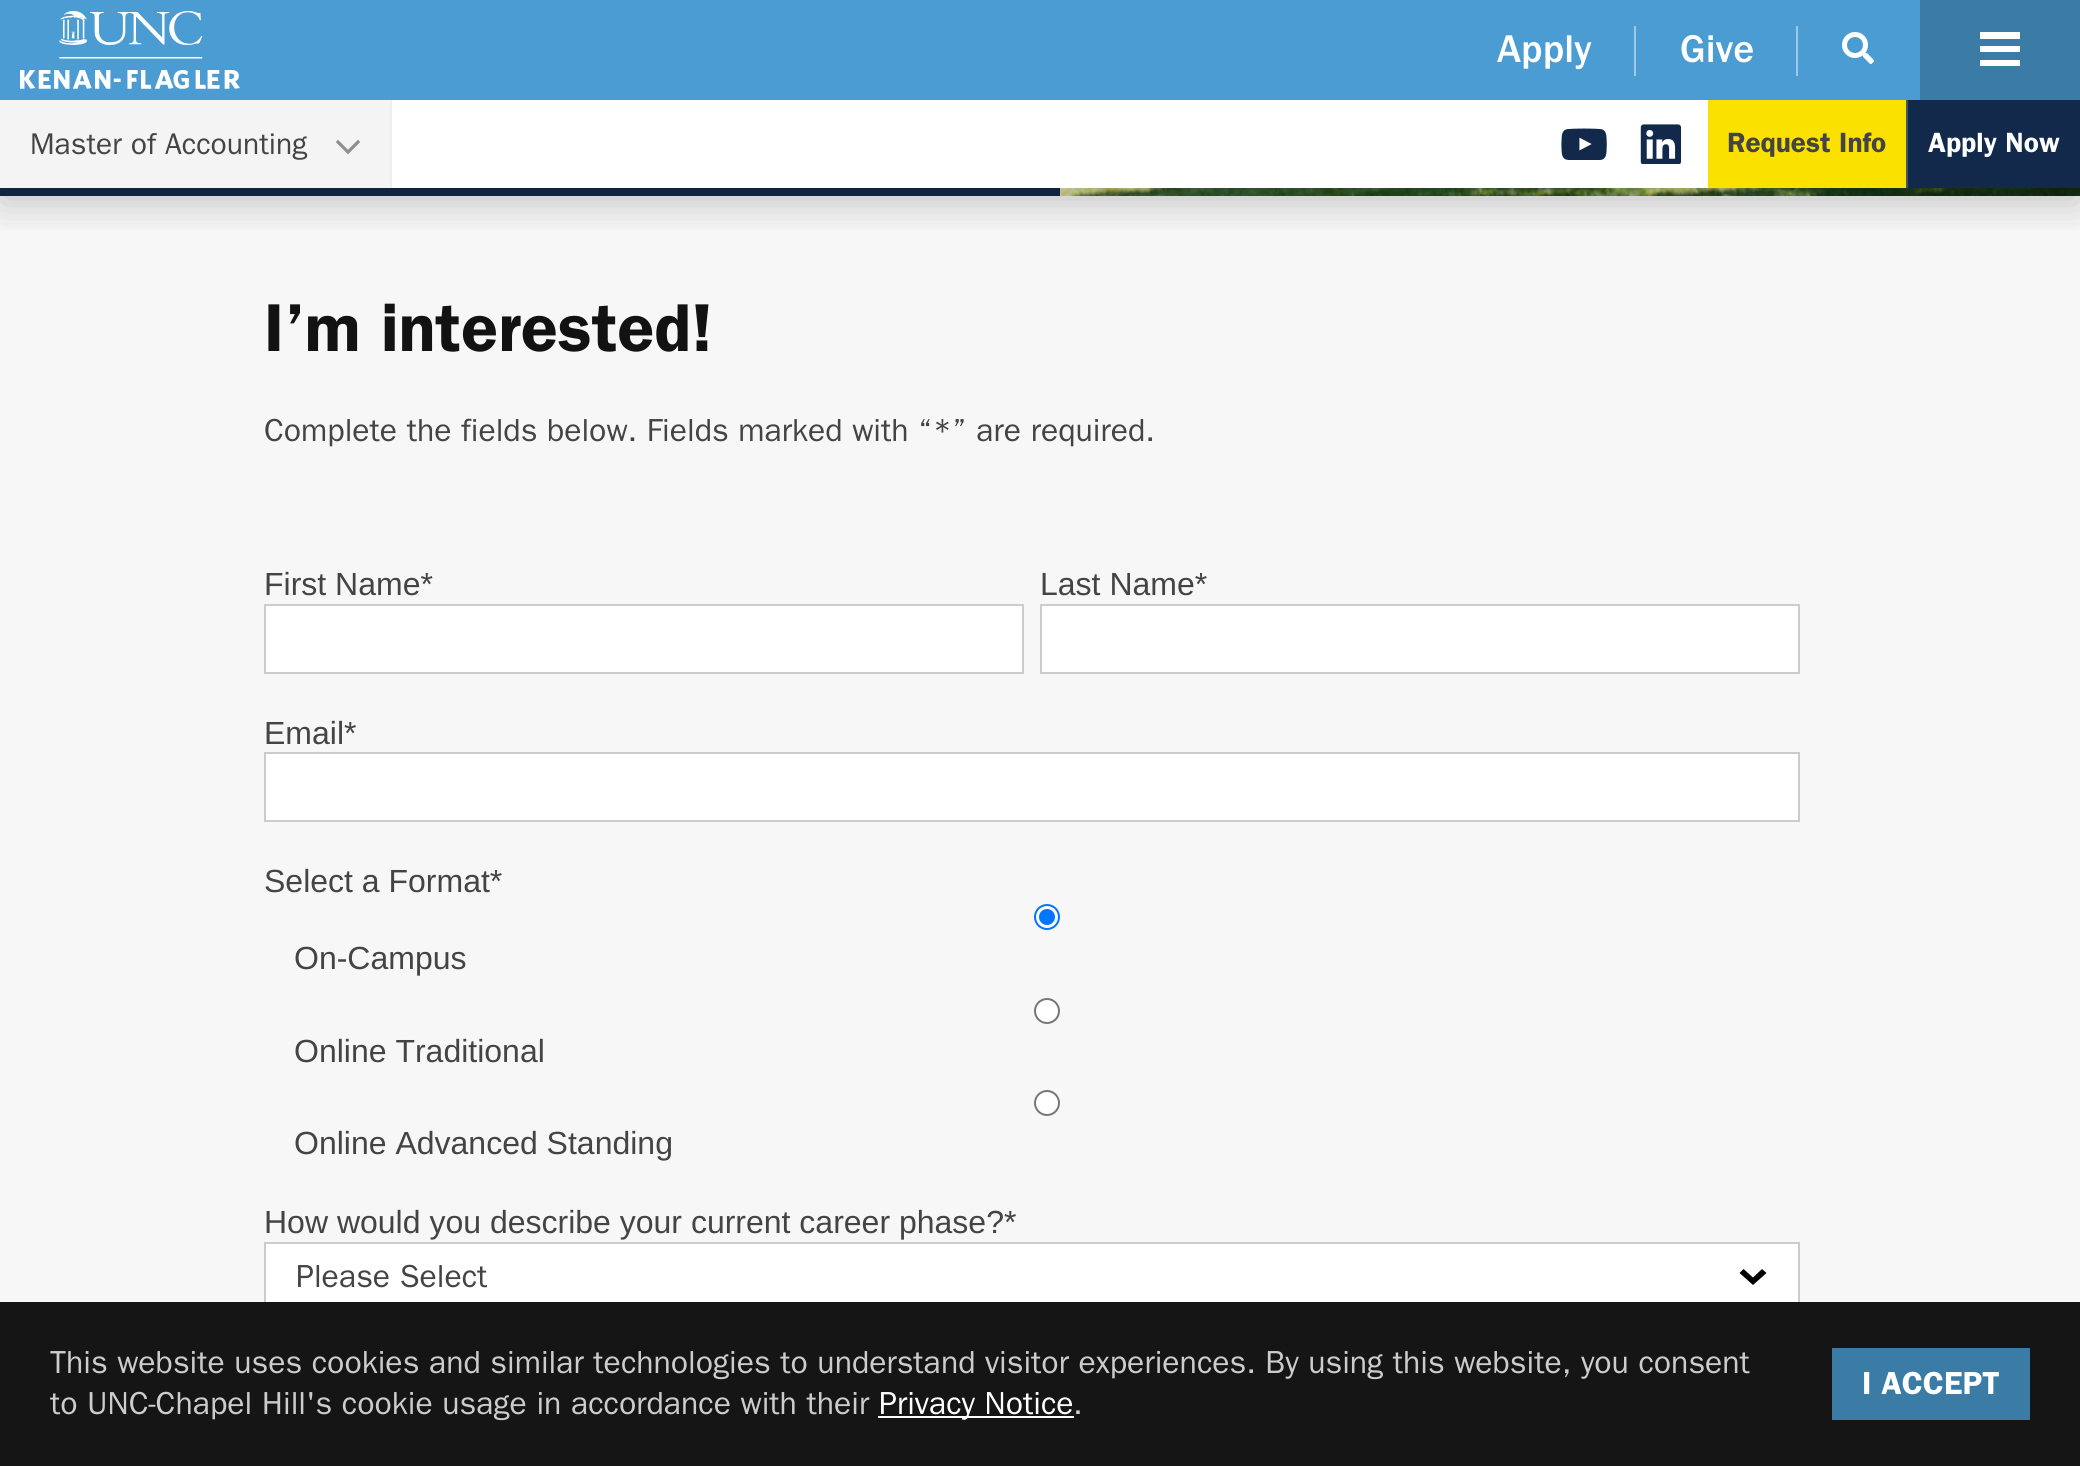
import math
import cairo


def use_color(cr, r, g, b):
  cr.set_source_rgb(r / 255, g / 255, b / 255)

def text(cr, x, y, s, family, size, color, bold=False, italic=False):
  cr.select_font_face(family, cairo.FONT_SLANT_ITALIC if italic else cairo.FONT_SLANT_NORMAL, cairo.FONT_WEIGHT_BOLD if bold else cairo.FONT_WEIGHT_NORMAL)
  cr.set_font_size(size)
  use_color(cr, *color)
  cr.move_to(x, y)
  cr.show_text(s)

def box(cr, x, y, w, h, *color):
  use_color(cr, *color)
  cr.rectangle(x, y, w, h)
  cr.fill()

def round_rect(cr, x, y, w, h, r):
  cr.new_sub_path()
  for i, (u, v) in enumerate([(x + w - r, y + h - r), (x + r, y + h - r), (x + r, y + r), (x + w - r, y + r)]):
    cr.arc(u, v, r, i * math.pi / 2, (i + 1) * math.pi / 2)
  cr.close_path()

def shadow(cr, x, y, w, h, r, blur, alpha):
  cr.push_group_with_content(cairo.CONTENT_ALPHA)
  cr.set_operator(cairo.OPERATOR_SOURCE)
  for i in range(15, -16, -2):
    e = blur * i / 6
    if min(w, h) + 2 * e > 0:
      cr.set_source_rgba(0, 0, 0, alpha * math.erfc((i - 1) / 8.5) / 2)
      round_rect(cr, x - e, y - e, w + 2 * e, h + 2 * e, max(0, min(r + e + blur * .6, min(w, h) / 2 + e)))
      cr.fill()
  cr.mask(cr.pop_group())

def picture(cr, path, x, y, w, h):
  cr.save()
  cr.set_source_surface(cairo.ImageSurface.create_from_png(path), x, y)
  cr.rectangle(x, y, w, h)
  cr.fill()
  cr.restore()

def draw(cr):
  use_color(cr, 19, 41, 75)
  cr.paint()
  box(cr, 392, 100, 1316, 88, 255, 255, 255)
  picture(cr, "img_06.png", 1060, 188, 1020, 8)
  box(cr, 0, 196, 2080, 1106, 247, 247, 247)
  cr.save()
  cr.rectangle(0, 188, 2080, 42)
  cr.clip()
  use_color(cr, 0, 0, 0)
  shadow(cr, 0, 116, 2080, 88, 0, 20, 0.21)
  cr.restore()
  box(cr, 0, 0, 1920, 100, 75, 156, 211)
  picture(cr, "img_01.png", 20, 11, 220, 78)
  box(cr, 1634, 26, 2, 50, 157, 201, 231)
  box(cr, 1796, 26, 2, 50, 157, 201, 231)
  picture(cr, "img_02.png", 1842, 32, 32, 32)
  box(cr, 1920, 0, 160, 100, 59, 124, 167)
  use_color(cr, 255, 255, 255)
  cr.set_fill_rule(cairo.FILL_RULE_EVEN_ODD)
  cr.new_path()
  cr.move_to(1980, 32)
  cr.line_to(2020, 32)
  cr.line_to(2020, 39)
  cr.line_to(1980, 39)
  cr.close_path()
  cr.move_to(1980, 46)
  cr.line_to(2020, 46)
  cr.line_to(2020, 52)
  cr.line_to(1980, 52)
  cr.close_path()
  cr.move_to(1980, 60)
  cr.line_to(2020, 60)
  cr.line_to(2020, 66)
  cr.line_to(1980, 66)
  cr.close_path()
  cr.fill()
  box(cr, 0, 100, 390, 88, 244, 244, 244)
  box(cr, 390, 100, 2, 88, 238, 238, 238)
  picture(cr, "img_03.png", 336, 140, 24, 14)
  picture(cr, "img_04.png", 1561, 128, 46, 32)
  picture(cr, "img_05.png", 1640, 124, 42, 40)
  box(cr, 1708, 100, 198, 88, 250, 225, 0)
  box(cr, 1906, 100, 2, 88, 66, 84, 111)
  use_color(cr, 255, 255, 255)
  cr.rectangle(265, 605, 758, 68)
  cr.fill_preserve()
  use_color(cr, 204, 204, 204)
  cr.stroke()
  use_color(cr, 255, 255, 255)
  cr.rectangle(1041, 605, 758, 68)
  cr.fill_preserve()
  use_color(cr, 204, 204, 204)
  cr.stroke()
  use_color(cr, 255, 255, 255)
  cr.rectangle(265, 753, 1534, 68)
  cr.fill_preserve()
  use_color(cr, 204, 204, 204)
  cr.stroke()
  use_color(cr, 255, 255, 255)
  cr.arc(1047, 917, 12, 0, 2 * math.pi)
  cr.fill_preserve()
  use_color(cr, 0, 117, 255)
  cr.stroke()
  cr.arc(1047, 917, 8, 0, 2 * math.pi)
  cr.fill()
  use_color(cr, 255, 255, 255)
  cr.arc(1047, 1011, 12, 0, 2 * math.pi)
  cr.fill_preserve()
  use_color(cr, 118, 118, 118)
  cr.stroke()
  use_color(cr, 255, 255, 255)
  cr.arc(1047, 1103, 12, 0, 2 * math.pi)
  cr.fill_preserve()
  use_color(cr, 118, 118, 118)
  cr.stroke()
  box(cr, 266, 1244, 1532, 58, 255, 255, 255)
  use_color(cr, 0, 0, 0)
  cr.new_path()
  cr.move_to(1743.5, 1269)
  cr.line_to(1753, 1277.5)
  cr.line_to(1762, 1269)
  cr.line_to(1766.5, 1273)
  cr.line_to(1753, 1285)
  cr.line_to(1739.5, 1273)
  cr.close_path()
  cr.fill()
  cr.rectangle(265, 1243, 1534, 68)
  use_color(cr, 204, 204, 204)
  cr.stroke()
  box(cr, 0, 1302, 2080, 164, 21, 21, 21)
  box(cr, 878, 1416, 196, 2, 255, 255, 255)
  box(cr, 1832, 1348, 198, 72, 59, 124, 167)
  text(cr, 1497, 62, "Apply", "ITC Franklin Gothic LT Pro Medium", 40, (255, 255, 255))
  text(cr, 1680, 62, "Give", "ITC Franklin Gothic LT Pro Medium", 40, (255, 255, 255))
  text(cr, 30, 154, "Master of Accounting", "ITC Franklin Gothic LT Pro", 30, (68, 68, 68))
  text(cr, 1727, 152, "Request Info", "ITC Franklin Gothic LT Pro SemiBold", 28, (68, 68, 68))
  text(cr, 1928, 152, "Apply Now", "ITC Franklin Gothic LT Pro SemiBold", 28, (255, 255, 255))
  text(cr, 264, 351, "I’m interested!", "ITC Franklin Gothic LT Pro SemiBold", 68, (18, 18, 18))
  text(cr, 264, 441, "Complete the fields below. Fields marked with “*” are required.", "ITC Franklin Gothic LT Pro", 32, (68, 68, 68))
  text(cr, 264, 595, "First Name*", "Liberation Sans", 32, (68, 68, 68))
  text(cr, 1040, 595, "Last Name*", "Liberation Sans", 32, (68, 68, 68))
  text(cr, 264, 744, "Email*", "Liberation Sans", 32, (68, 68, 68))
  text(cr, 264, 892, "Select a Format*", "Liberation Sans", 32, (68, 68, 68))
  text(cr, 294, 969, "On-Campus", "Liberation Sans", 32, (68, 68, 68))
  text(cr, 294, 1062, "Online Traditional", "Liberation Sans", 32, (68, 68, 68))
  text(cr, 294, 1154, "Online Advanced Standing", "Liberation Sans", 32, (68, 68, 68))
  text(cr, 264, 1233, "How would you describe your current career phase?*", "Liberation Sans", 32, (68, 68, 68))
  text(cr, 296, 1287, "Please Select", "ITC Franklin Gothic LT Pro", 32, (68, 68, 68))
  text(cr, 50, 1373, "This website uses cookies and similar technologies to understand visitor experiences. By using this website, you consent", "ITC Franklin Gothic LT Pro", 32, (204, 204, 204))
  text(cr, 50, 1414, "to UNC-Chapel Hill's cookie usage in accordance with their", "ITC Franklin Gothic LT Pro", 32, (204, 204, 204))
  text(cr, 879, 1414, "Privacy Notice", "ITC Franklin Gothic LT Pro", 32, (255, 255, 255))
  text(cr, 1073, 1414, ".", "ITC Franklin Gothic LT Pro", 32, (204, 204, 204))
  text(cr, 1862, 1394, "I ACCEPT", "ITC Franklin Gothic LT Pro SemiBold", 32, (255, 255, 255))


surface = cairo.ImageSurface(cairo.FORMAT_RGB24, 2080, 1466)
cr = cairo.Context(surface)
options = cairo.FontOptions()
options.set_hint_metrics(cairo.HINT_METRICS_OFF)
options.set_hint_style(cairo.HINT_STYLE_NONE)
cr.set_font_options(options)
cr.set_miter_limit(4)
draw(cr)
surface.write_to_png("out.png")
